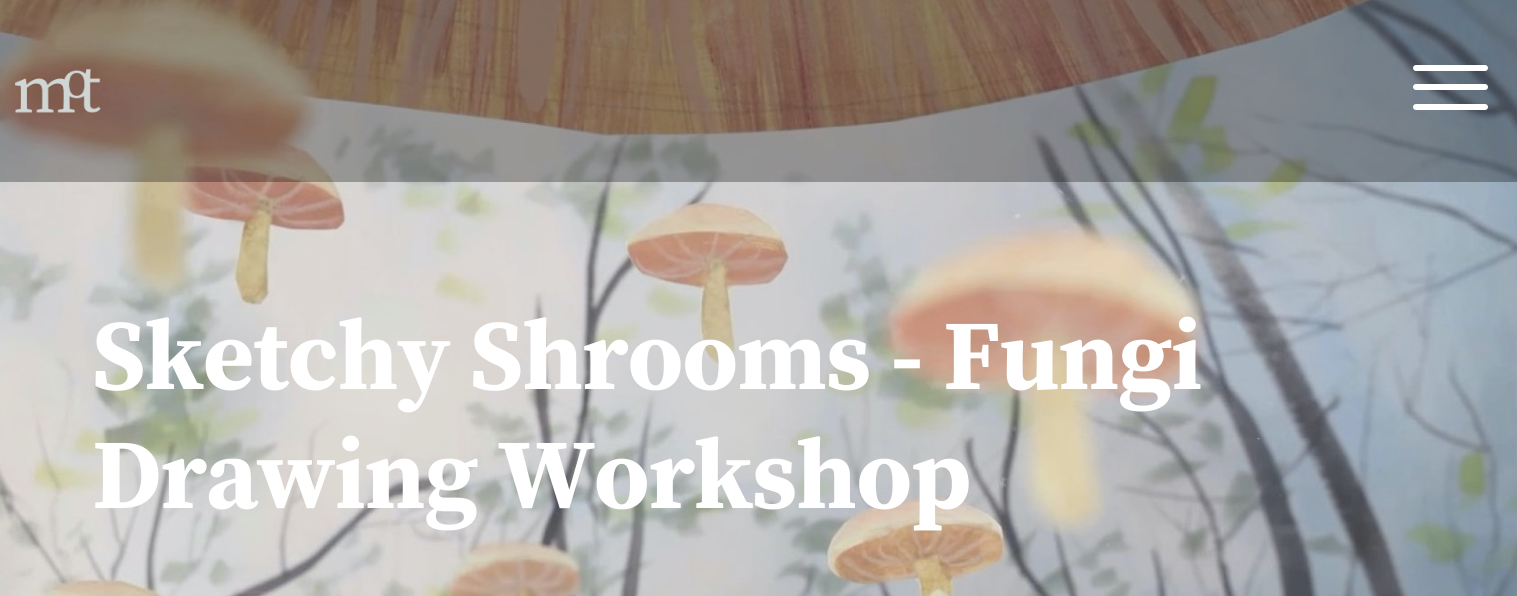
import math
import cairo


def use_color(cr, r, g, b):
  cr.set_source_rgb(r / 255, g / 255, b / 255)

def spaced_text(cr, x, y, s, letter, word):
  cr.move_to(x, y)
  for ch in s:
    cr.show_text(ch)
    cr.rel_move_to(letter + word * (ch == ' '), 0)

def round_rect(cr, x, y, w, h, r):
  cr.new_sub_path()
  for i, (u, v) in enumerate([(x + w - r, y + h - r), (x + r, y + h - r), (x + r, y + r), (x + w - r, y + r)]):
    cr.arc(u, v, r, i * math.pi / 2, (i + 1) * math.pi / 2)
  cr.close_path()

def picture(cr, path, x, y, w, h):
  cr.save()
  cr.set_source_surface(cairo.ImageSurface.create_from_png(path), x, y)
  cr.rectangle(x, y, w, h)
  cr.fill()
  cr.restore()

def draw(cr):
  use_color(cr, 255, 255, 255)
  cr.paint()
  picture(cr, "img_02.png", 0, 0, 1517, 596)
  cr.set_source_rgba(0, 0, 0, 0.3)
  cr.rectangle(0, 0, 1517, 182)
  cr.fill()
  picture(cr, "img_01.png", 15, 69, 86, 44)
  use_color(cr, 255, 255, 255)
  round_rect(cr, 1413, 65, 75, 6, 3)
  cr.fill()
  round_rect(cr, 1413, 84, 75, 6, 3)
  cr.fill()
  round_rect(cr, 1413, 104, 75, 6, 3)
  cr.fill()
  cr.select_font_face("Source Serif Pro", cairo.FONT_SLANT_NORMAL, cairo.FONT_WEIGHT_BOLD)
  cr.set_font_size(99)
  spaced_text(cr, 92, 389, "Sketchy Shrooms - Fungi", -1, 0)
  spaced_text(cr, 92, 508, "Drawing Workshop", -1, 0)


surface = cairo.ImageSurface(cairo.FORMAT_RGB24, 1517, 596)
cr = cairo.Context(surface)
options = cairo.FontOptions()
options.set_hint_metrics(cairo.HINT_METRICS_OFF)
options.set_hint_style(cairo.HINT_STYLE_NONE)
cr.set_font_options(options)
cr.set_miter_limit(4)
draw(cr)
surface.write_to_png("out.png")
